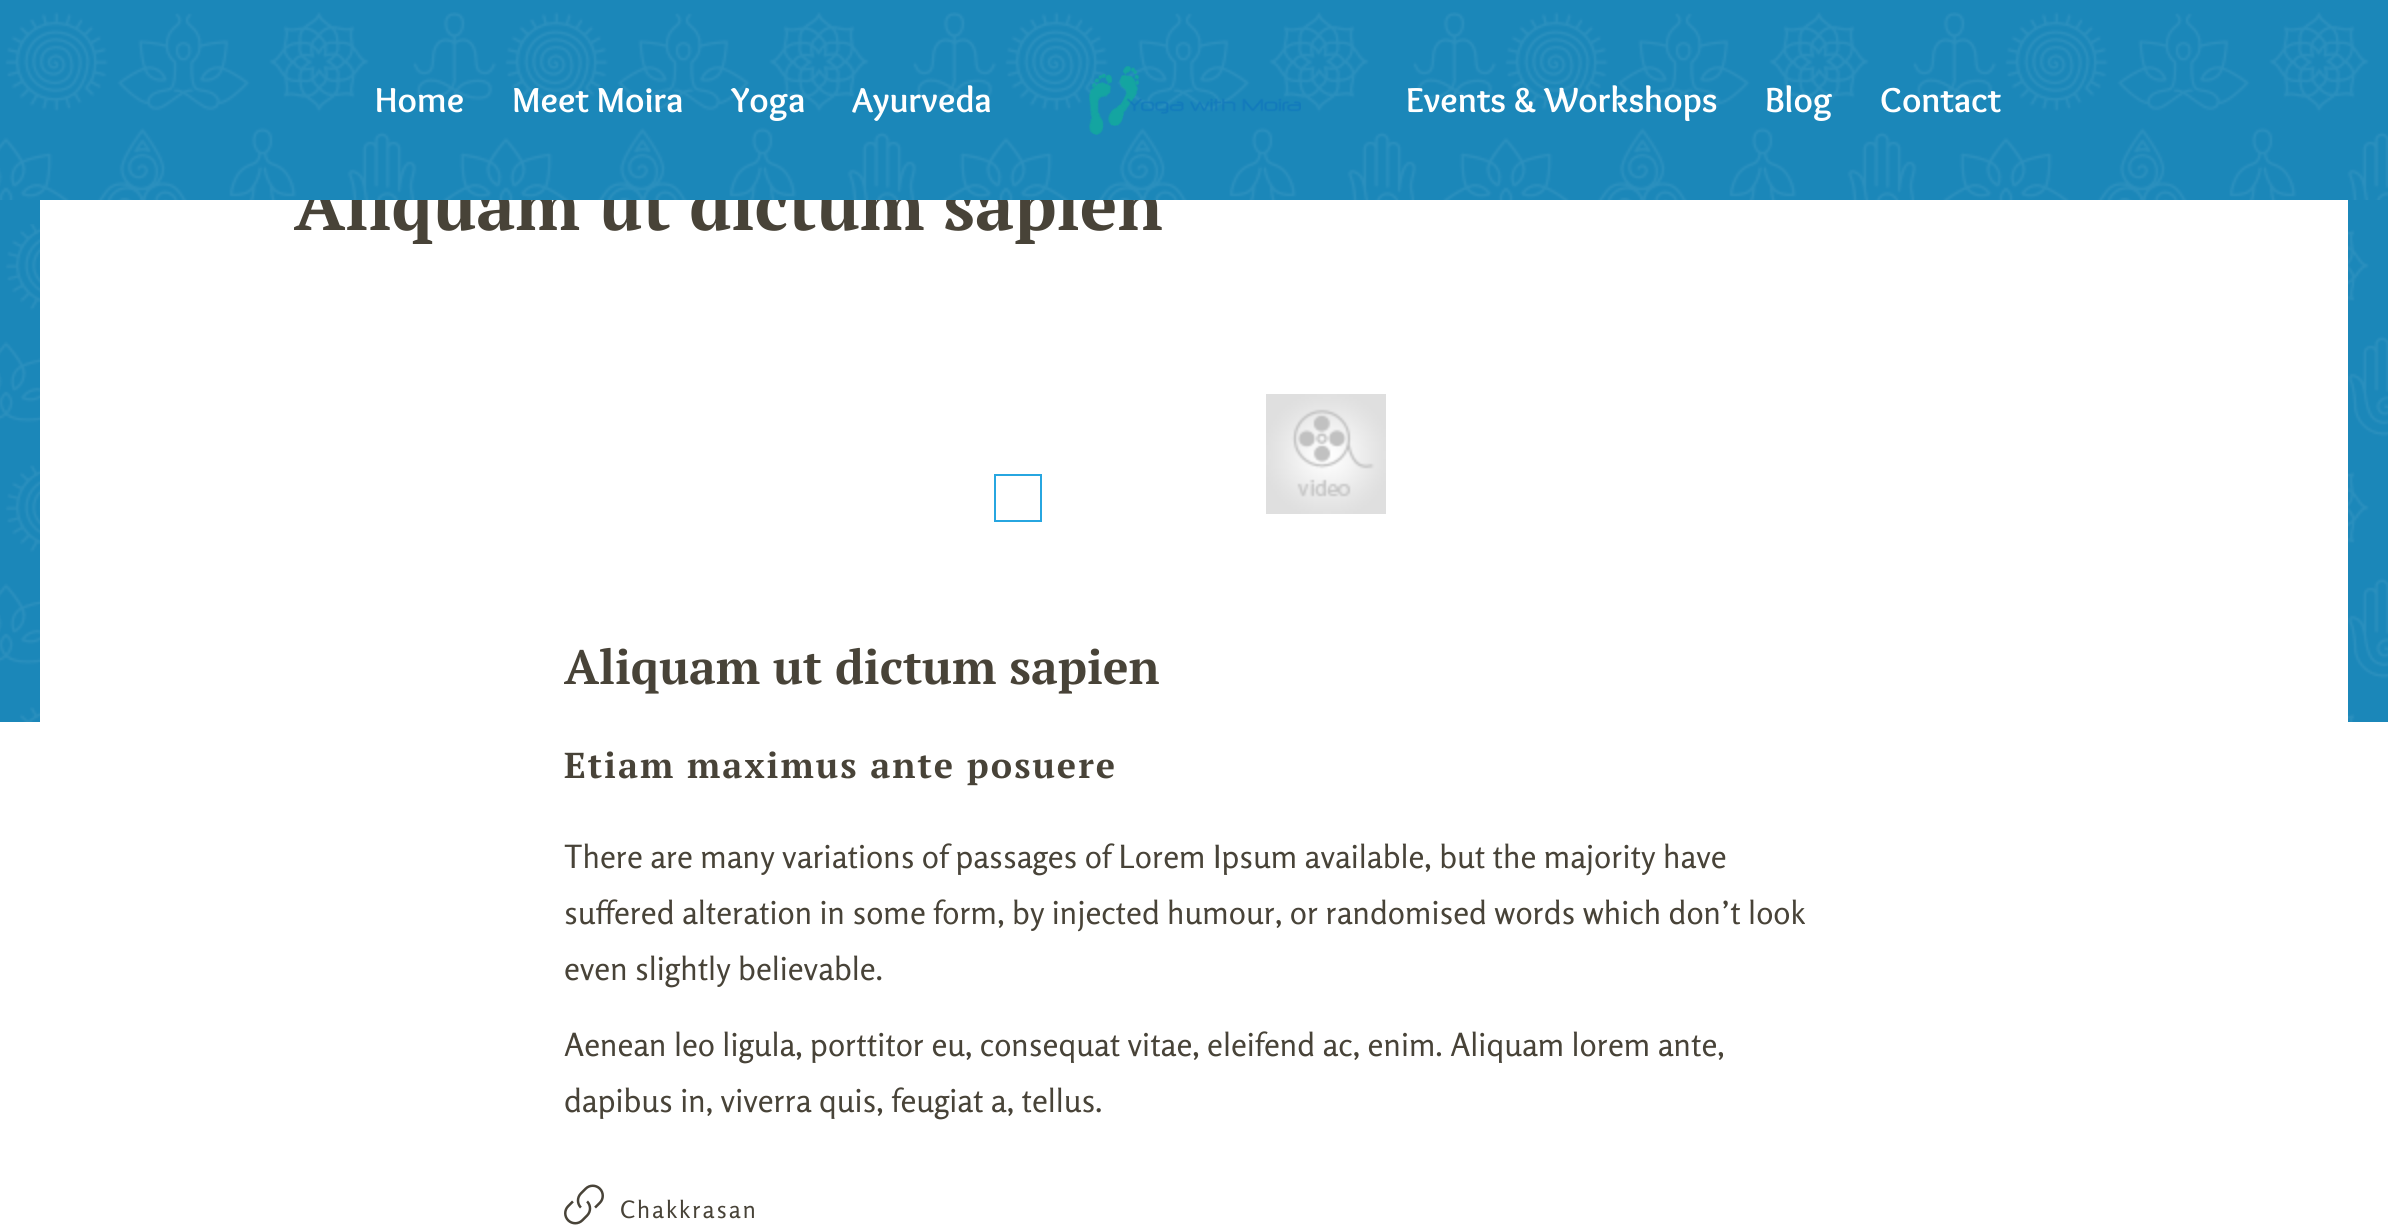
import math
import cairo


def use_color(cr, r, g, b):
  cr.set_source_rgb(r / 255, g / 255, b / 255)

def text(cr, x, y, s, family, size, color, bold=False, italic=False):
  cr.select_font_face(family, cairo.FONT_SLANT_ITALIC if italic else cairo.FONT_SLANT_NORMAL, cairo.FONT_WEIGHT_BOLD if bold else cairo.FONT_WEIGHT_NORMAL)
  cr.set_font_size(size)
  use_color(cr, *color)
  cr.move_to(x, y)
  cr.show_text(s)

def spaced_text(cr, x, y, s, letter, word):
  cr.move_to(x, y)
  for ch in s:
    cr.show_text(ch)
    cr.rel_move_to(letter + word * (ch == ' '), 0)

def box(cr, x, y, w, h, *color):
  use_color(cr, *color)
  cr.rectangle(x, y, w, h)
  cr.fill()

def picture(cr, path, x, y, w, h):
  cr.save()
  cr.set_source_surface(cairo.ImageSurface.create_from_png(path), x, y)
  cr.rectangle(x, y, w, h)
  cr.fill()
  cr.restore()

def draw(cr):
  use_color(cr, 255, 255, 255)
  cr.paint()
  box(cr, 0, 200, 2388, 522, 27, 135, 185)
  picture(cr, "img_03.png", 0, 224, 2388, 498)
  box(cr, 40, 200, 2308, 522, 255, 255, 255)
  cr.rectangle(995, 475, 46, 46)
  use_color(cr, 39, 166, 224)
  cr.stroke()
  picture(cr, "img_04.png", 1266, 394, 120, 120)
  picture(cr, "img_05.png", 564, 1184, 40, 41)
  text(cr, 294, 230, "Aliquam ut dictum sapien", "PT Serif", 70, (72, 67, 56), bold=True)
  box(cr, 0, 0, 2388, 200, 27, 135, 185)
  picture(cr, "img_01.png", 0, 12, 2388, 188)
  picture(cr, "img_02.png", 1089, 66, 212, 69)
  text(cr, 1880, 112, "Contact", "Overlock", 36, (255, 255, 255), bold=True)
  text(cr, 1765, 112, "Blog", "Overlock", 36, (255, 255, 255), bold=True)
  text(cr, 1406, 112, "Events & Workshops", "Overlock", 36, (255, 255, 255), bold=True)
  text(cr, 852, 112, "Ayurveda", "Overlock", 36, (255, 255, 255), bold=True)
  text(cr, 731, 112, "Yoga", "Overlock", 36, (255, 255, 255), bold=True)
  text(cr, 512, 112, "Meet Moira", "Overlock", 36, (255, 255, 255), bold=True)
  text(cr, 375, 112, "Home", "Overlock", 36, (255, 255, 255), bold=True)
  text(cr, 564, 684, "Aliquam ut dictum sapien", "PT Serif", 48, (72, 67, 56), bold=True)
  cr.set_font_size(36)
  spaced_text(cr, 564, 778, "Etiam maximus ante posuere", 2, 0)
  text(cr, 564, 868, "There are many variations of passages of Lorem Ipsum available, but the majority have", "Rosario", 32, (72, 67, 56))
  text(cr, 564, 924, "suffered alteration in some form, by injected humour, or randomised words which don’t look", "Rosario", 32, (72, 67, 56))
  text(cr, 564, 980, "even slightly believable.", "Rosario", 32, (72, 67, 56))
  text(cr, 564, 1056, "Aenean leo ligula, porttitor eu, consequat vitae, eleifend ac, enim. Aliquam lorem ante,", "Rosario", 32, (72, 67, 56))
  text(cr, 564, 1112, "dapibus in, viverra quis, feugiat a, tellus.", "Rosario", 32, (72, 67, 56))
  cr.set_font_size(24)
  spaced_text(cr, 620, 1218, "Chakkrasan", 2, 0)


surface = cairo.ImageSurface(cairo.FORMAT_RGB24, 2388, 1229)
cr = cairo.Context(surface)
options = cairo.FontOptions()
options.set_hint_metrics(cairo.HINT_METRICS_OFF)
options.set_hint_style(cairo.HINT_STYLE_NONE)
cr.set_font_options(options)
cr.set_miter_limit(4)
draw(cr)
surface.write_to_png("out.png")
